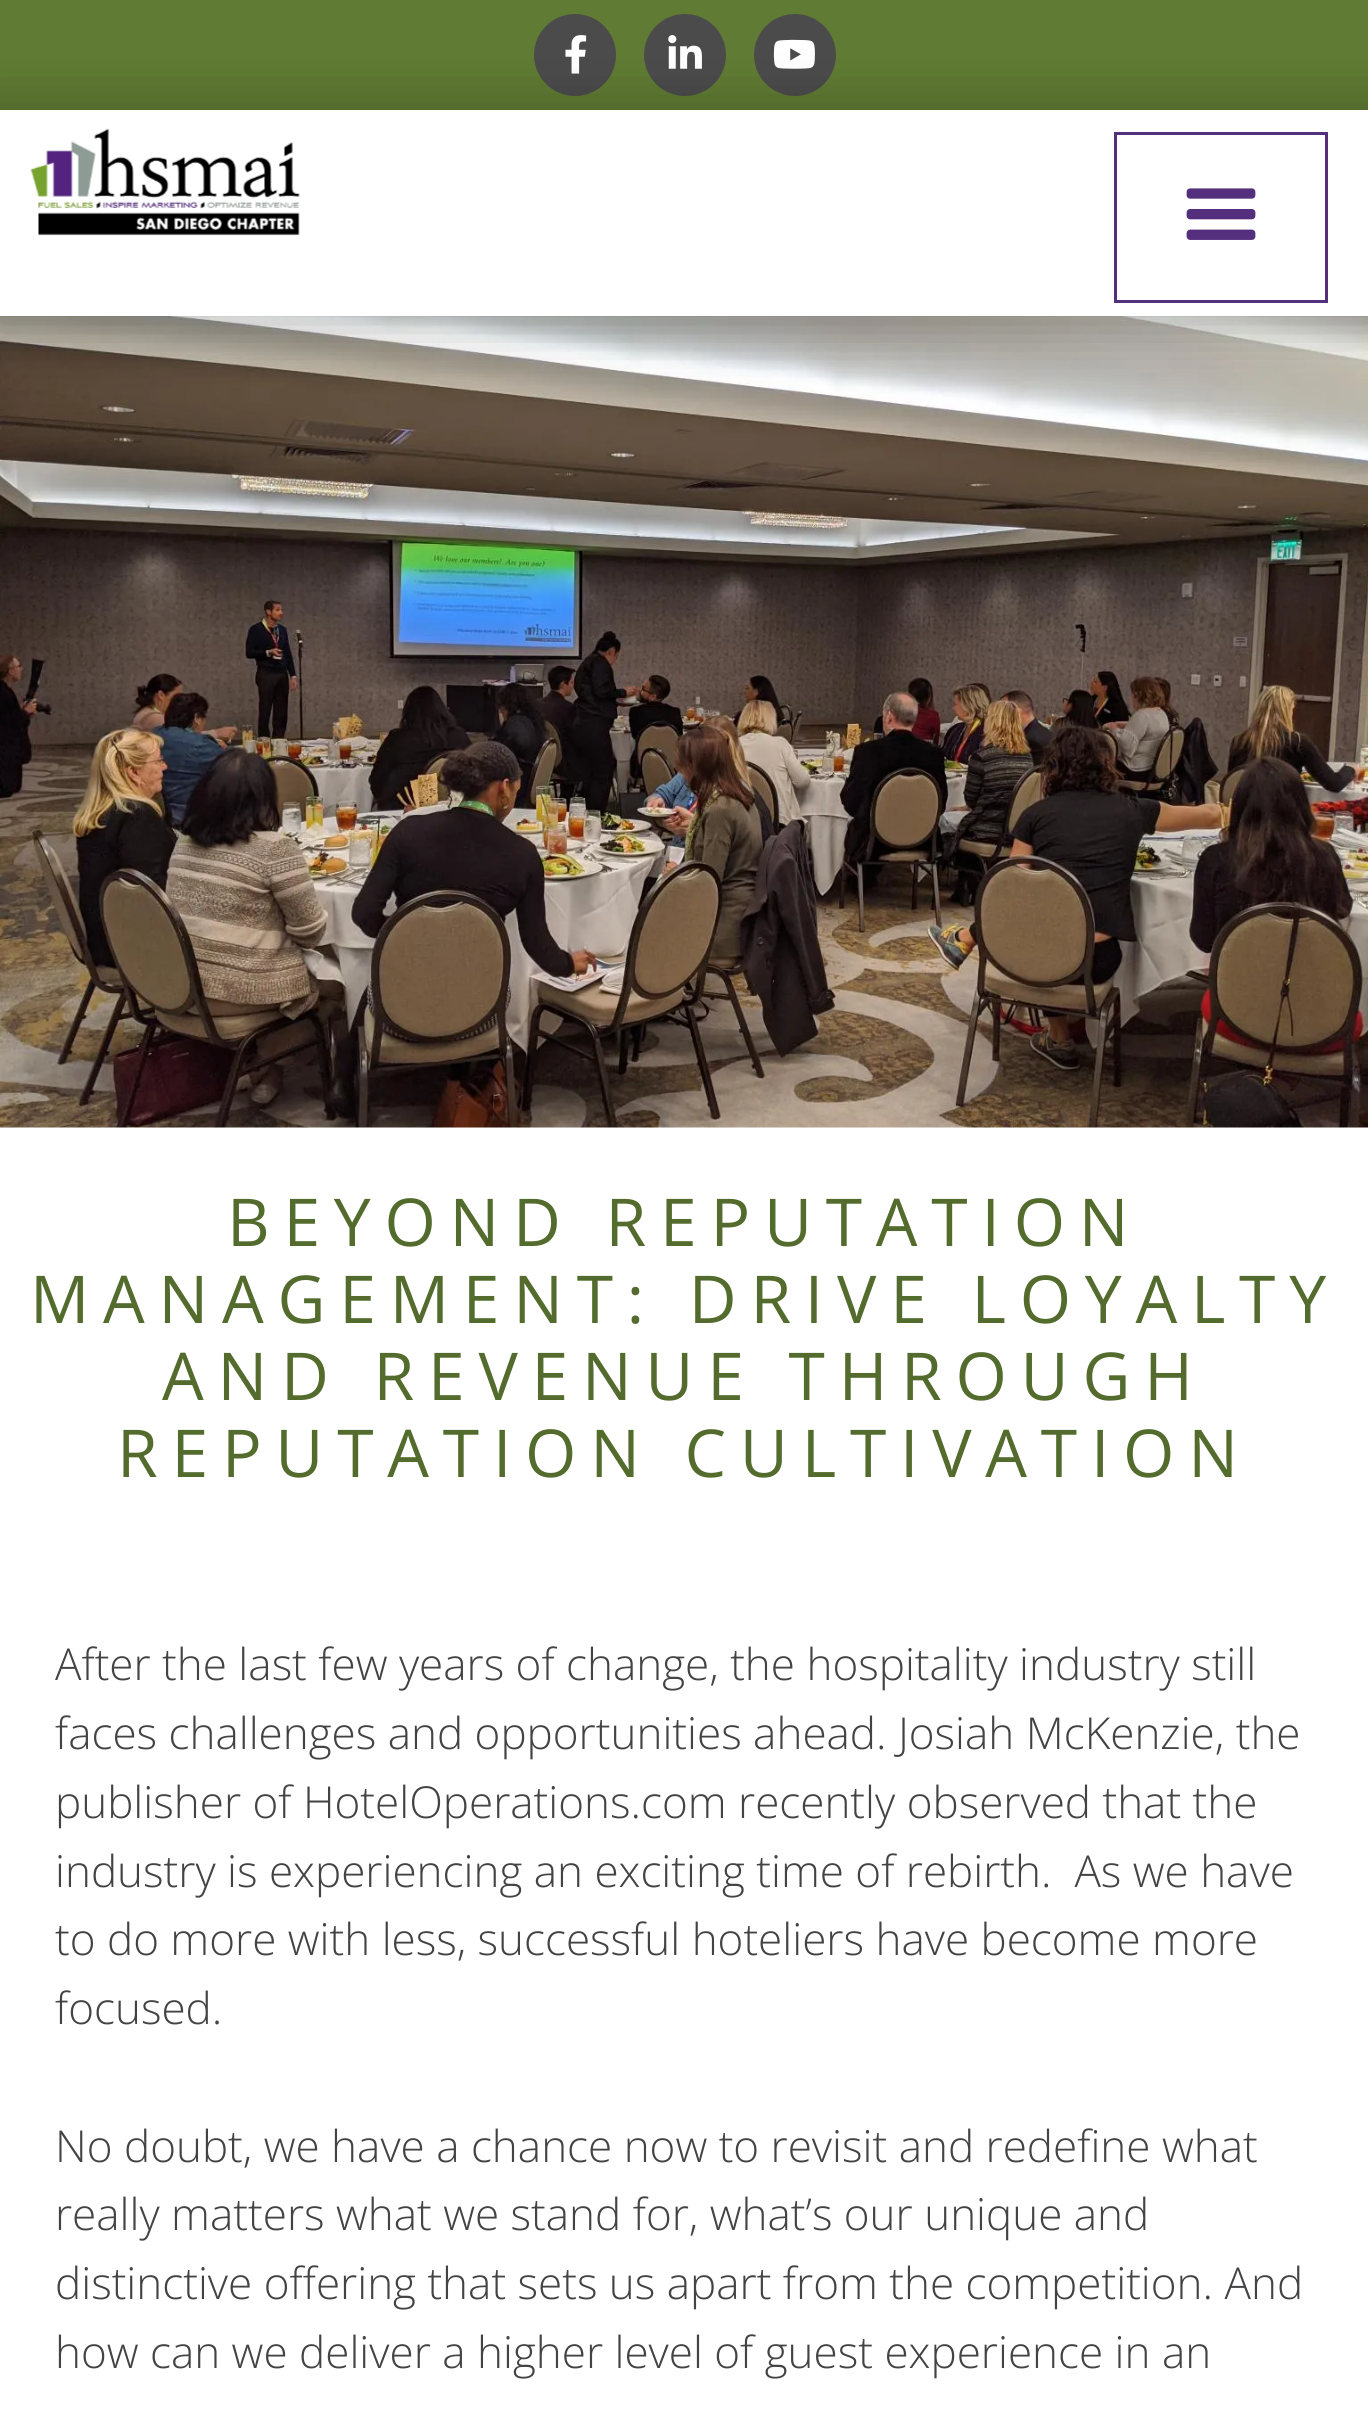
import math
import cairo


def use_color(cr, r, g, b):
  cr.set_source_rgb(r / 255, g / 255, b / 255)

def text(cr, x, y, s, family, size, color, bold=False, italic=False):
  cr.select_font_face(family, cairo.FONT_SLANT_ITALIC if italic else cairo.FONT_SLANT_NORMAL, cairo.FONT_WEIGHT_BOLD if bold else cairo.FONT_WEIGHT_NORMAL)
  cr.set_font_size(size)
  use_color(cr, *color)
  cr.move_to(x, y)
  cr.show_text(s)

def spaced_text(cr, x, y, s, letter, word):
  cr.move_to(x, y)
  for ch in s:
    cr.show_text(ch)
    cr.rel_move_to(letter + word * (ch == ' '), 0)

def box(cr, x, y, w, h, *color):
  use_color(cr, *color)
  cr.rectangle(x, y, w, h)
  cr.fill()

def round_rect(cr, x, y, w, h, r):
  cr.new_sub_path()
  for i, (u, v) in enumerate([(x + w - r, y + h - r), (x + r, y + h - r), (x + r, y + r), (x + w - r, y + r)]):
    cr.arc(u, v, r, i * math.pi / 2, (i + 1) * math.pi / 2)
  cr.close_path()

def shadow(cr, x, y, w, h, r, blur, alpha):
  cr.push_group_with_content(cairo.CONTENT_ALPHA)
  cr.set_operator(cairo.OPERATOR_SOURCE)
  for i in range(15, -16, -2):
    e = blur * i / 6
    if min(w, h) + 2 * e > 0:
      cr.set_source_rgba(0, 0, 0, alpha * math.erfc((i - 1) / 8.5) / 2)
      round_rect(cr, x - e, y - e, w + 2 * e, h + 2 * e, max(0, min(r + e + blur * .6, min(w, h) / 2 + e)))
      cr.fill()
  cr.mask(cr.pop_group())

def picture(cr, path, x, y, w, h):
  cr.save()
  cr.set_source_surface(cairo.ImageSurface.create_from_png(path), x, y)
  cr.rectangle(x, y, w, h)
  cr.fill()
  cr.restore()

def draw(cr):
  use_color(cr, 255, 255, 255)
  cr.paint()
  box(cr, 0, 0, 1368, 110, 96, 123, 51)
  use_color(cr, 75, 75, 75)
  cr.arc(575, 55, 41, 0, 2 * math.pi)
  cr.fill()
  picture(cr, "img_01.png", 565, 35, 22, 39)
  cr.arc(685, 55, 41, 0, 2 * math.pi)
  cr.fill()
  picture(cr, "img_02.png", 668, 35, 34, 34)
  cr.arc(795, 55, 41, 0, 2 * math.pi)
  cr.fill()
  picture(cr, "img_03.png", 773, 39, 42, 30)
  picture(cr, "img_06.png", 0, 316, 1368, 812)
  use_color(cr, 0, 0, 0)
  shadow(cr, -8, 107, 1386, 223, 0, 26, 0.25)
  box(cr, 0, 110, 1368, 206, 255, 255, 255)
  picture(cr, "img_04.png", 30, 128, 270, 108)
  cr.rectangle(1115.5, 133.5, 211, 168)
  use_color(cr, 83, 47, 125)
  cr.set_line_width(3)
  cr.stroke()
  picture(cr, "img_05.png", 1186, 188, 70, 52)
  cr.select_font_face("Open Sans")
  cr.set_font_size(66)
  use_color(cr, 83, 107, 44)
  spaced_text(cr, 227, 1246, "BEYOND REPUTATION", 13.75, 0)
  spaced_text(cr, 30, 1323, "MANAGEMENT: DRIVE LOYALTY", 13.75, 0)
  spaced_text(cr, 162, 1400, "AND REVENUE THROUGH", 13.75, 0)
  spaced_text(cr, 117, 1477, "REPUTATION CULTIVATION", 13.75, 0)
  text(cr, 55, 1680, "After the last few years of change, the hospitality industry still", "Open Sans Light", 44, (67, 67, 69))
  text(cr, 55, 1749, "faces challenges and opportunities ahead. Josiah McKenzie, the", "Open Sans Light", 44, (67, 67, 69))
  text(cr, 55, 1818, "publisher of HotelOperations.com recently observed that the", "Open Sans Light", 44, (67, 67, 69))
  text(cr, 55, 1887, "industry is experiencing an exciting time of rebirth.  As we have", "Open Sans Light", 44, (67, 67, 69))
  text(cr, 55, 1955, "to do more with less, successful hoteliers have become more", "Open Sans Light", 44, (67, 67, 69))
  text(cr, 55, 2024, "focused.", "Open Sans Light", 44, (67, 67, 69))
  text(cr, 55, 2162, "No doubt, we have a chance now to revisit and redefine what", "Open Sans Light", 44, (67, 67, 69))
  text(cr, 55, 2230, "really matters what we stand for, what’s our unique and", "Open Sans Light", 44, (67, 67, 69))
  text(cr, 55, 2299, "distinctive offering that sets us apart from the competition. And", "Open Sans Light", 44, (67, 67, 69))
  text(cr, 55, 2368, "how can we deliver a higher level of guest experience in an", "Open Sans Light", 44, (67, 67, 69))


surface = cairo.ImageSurface(cairo.FORMAT_RGB24, 1368, 2409)
cr = cairo.Context(surface)
options = cairo.FontOptions()
options.set_hint_metrics(cairo.HINT_METRICS_OFF)
options.set_hint_style(cairo.HINT_STYLE_NONE)
cr.set_font_options(options)
cr.set_miter_limit(4)
draw(cr)
surface.write_to_png("out.png")
